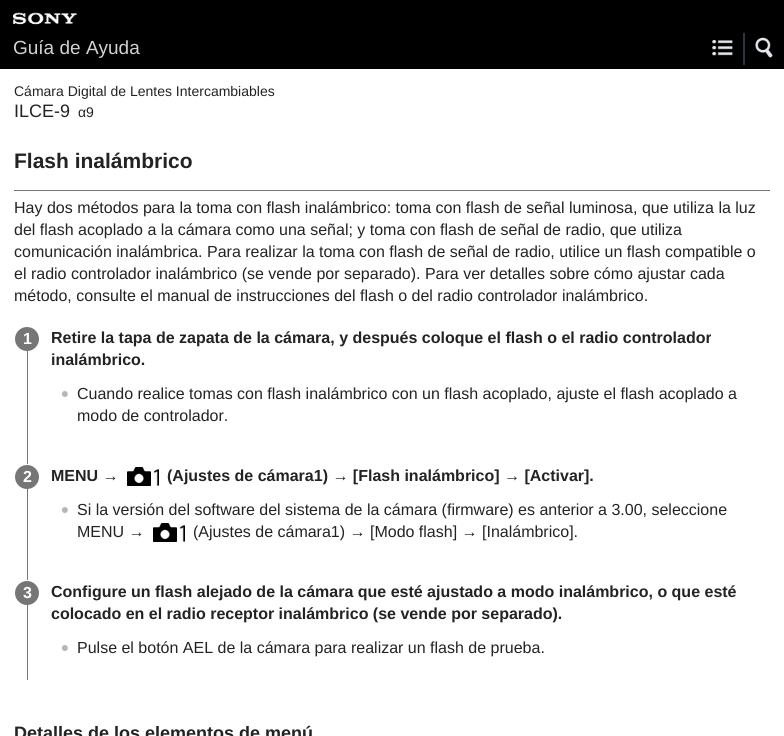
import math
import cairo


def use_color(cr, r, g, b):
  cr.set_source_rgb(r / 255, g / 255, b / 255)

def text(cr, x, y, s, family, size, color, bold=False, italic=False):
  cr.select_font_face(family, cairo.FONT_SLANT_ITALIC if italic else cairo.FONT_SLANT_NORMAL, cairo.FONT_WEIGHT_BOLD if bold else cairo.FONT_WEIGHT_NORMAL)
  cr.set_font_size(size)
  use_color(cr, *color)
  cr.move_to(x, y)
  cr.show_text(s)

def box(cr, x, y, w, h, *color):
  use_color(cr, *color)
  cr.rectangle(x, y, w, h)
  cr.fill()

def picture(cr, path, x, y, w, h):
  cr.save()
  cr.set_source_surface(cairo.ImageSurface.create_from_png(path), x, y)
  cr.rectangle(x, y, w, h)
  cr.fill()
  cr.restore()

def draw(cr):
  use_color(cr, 255, 255, 255)
  cr.paint()
  box(cr, 0, 0, 784, 69, 0, 0, 0)
  picture(cr, "img_01.png", 13, 12, 65, 13)
  box(cr, 743, 33, 2, 32, 47, 53, 61)
  picture(cr, "img_02.png", 712, 40, 21, 16)
  picture(cr, "img_03.png", 755, 37, 18, 21)
  box(cr, 14, 190, 756, 1, 118, 118, 118)
  box(cr, 27, 327, 1, 137, 118, 118, 118)
  cr.arc(27, 339, 12, 0, 2 * math.pi)
  cr.fill()
  picture(cr, "img_04.png", 61, 391, 7, 6)
  box(cr, 27, 465, 1, 115, 118, 118, 118)
  cr.arc(27, 477, 12, 0, 2 * math.pi)
  cr.fill()
  picture(cr, "img_05.png", 127, 467, 32, 19)
  picture(cr, "img_04.png", 61, 507, 7, 6)
  picture(cr, "img_06.png", 153, 523, 32, 19)
  box(cr, 27, 581, 1, 99, 118, 118, 118)
  cr.arc(27, 593, 12, 0, 2 * math.pi)
  cr.fill()
  picture(cr, "img_04.png", 61, 645, 7, 6)
  text(cr, 13, 54, "Guía de Ayuda", "Liberation Sans", 19, (210, 210, 210))
  text(cr, 14, 96, "Cámara Digital de Lentes Intercambiables", "Liberation Sans", 14, (35, 35, 35))
  text(cr, 14, 117, "ILCE-9", "Liberation Sans", 18, (35, 35, 35))
  text(cr, 78, 117, "α9", "Liberation Sans", 14, (35, 35, 35))
  text(cr, 14, 168, "Flash inalámbrico", "Liberation Sans", 21, (35, 35, 35), bold=True)
  text(cr, 14, 213, "Hay dos métodos para la toma con flash inalámbrico: toma con flash de señal luminosa, que utiliza la luz", "Liberation Sans", 16, (35, 35, 35))
  text(cr, 14, 235, "del flash acoplado a la cámara como una señal; y toma con flash de señal de radio, que utiliza", "Liberation Sans", 16, (35, 35, 35))
  text(cr, 14, 257, "comunicación inalámbrica. Para realizar la toma con flash de señal de radio, utilice un flash compatible o", "Liberation Sans", 16, (35, 35, 35))
  text(cr, 14, 279, "el radio controlador inalámbrico (se vende por separado). Para ver detalles sobre cómo ajustar cada", "Liberation Sans", 16, (35, 35, 35))
  text(cr, 14, 301, "método, consulte el manual de instrucciones del flash o del radio controlador inalámbrico.", "Liberation Sans", 16, (35, 35, 35))
  text(cr, 23, 344, "1", "Liberation Sans", 16, (255, 255, 255), bold=True)
  text(cr, 51, 343, "Retire la tapa de zapata de la cámara, y después coloque el flash o el radio controlador", "Liberation Sans", 16, (35, 35, 35), bold=True)
  text(cr, 51, 365, "inalámbrico.", "Liberation Sans", 16, (35, 35, 35), bold=True)
  text(cr, 77, 399, "Cuando realice tomas con flash inalámbrico con un flash acoplado, ajuste el flash acoplado a", "Liberation Sans", 16, (35, 35, 35))
  text(cr, 77, 421, "modo de controlador.", "Liberation Sans", 16, (35, 35, 35))
  text(cr, 23, 482, "2", "Liberation Sans", 16, (255, 255, 255), bold=True)
  text(cr, 51, 481, "MENU →", "Liberation Sans", 16, (35, 35, 35), bold=True)
  text(cr, 167, 481, "(Ajustes de cámara1) → [Flash inalámbrico] → [Activar].", "Liberation Sans", 16, (35, 35, 35), bold=True)
  text(cr, 77, 515, "Si la versión del software del sistema de la cámara (firmware) es anterior a 3.00, seleccione", "Liberation Sans", 16, (35, 35, 35))
  text(cr, 77, 537, "MENU →", "Liberation Sans", 16, (35, 35, 35))
  text(cr, 193, 537, "(Ajustes de cámara1) → [Modo flash] → [Inalámbrico].", "Liberation Sans", 16, (35, 35, 35))
  text(cr, 23, 598, "3", "Liberation Sans", 16, (255, 255, 255), bold=True)
  text(cr, 51, 597, "Configure un flash alejado de la cámara que esté ajustado a modo inalámbrico, o que esté", "Liberation Sans", 16, (35, 35, 35), bold=True)
  text(cr, 51, 619, "colocado en el radio receptor inalámbrico (se vende por separado).", "Liberation Sans", 16, (35, 35, 35), bold=True)
  text(cr, 77, 653, "Pulse el botón AEL de la cámara para realizar un flash de prueba.", "Liberation Sans", 16, (35, 35, 35))
  text(cr, 14, 739, "Detalles de los elementos de menú", "Liberation Sans", 18, (35, 35, 35), bold=True)


surface = cairo.ImageSurface(cairo.FORMAT_RGB24, 784, 736)
cr = cairo.Context(surface)
options = cairo.FontOptions()
options.set_hint_metrics(cairo.HINT_METRICS_OFF)
options.set_hint_style(cairo.HINT_STYLE_NONE)
cr.set_font_options(options)
cr.set_miter_limit(4)
draw(cr)
surface.write_to_png("out.png")
